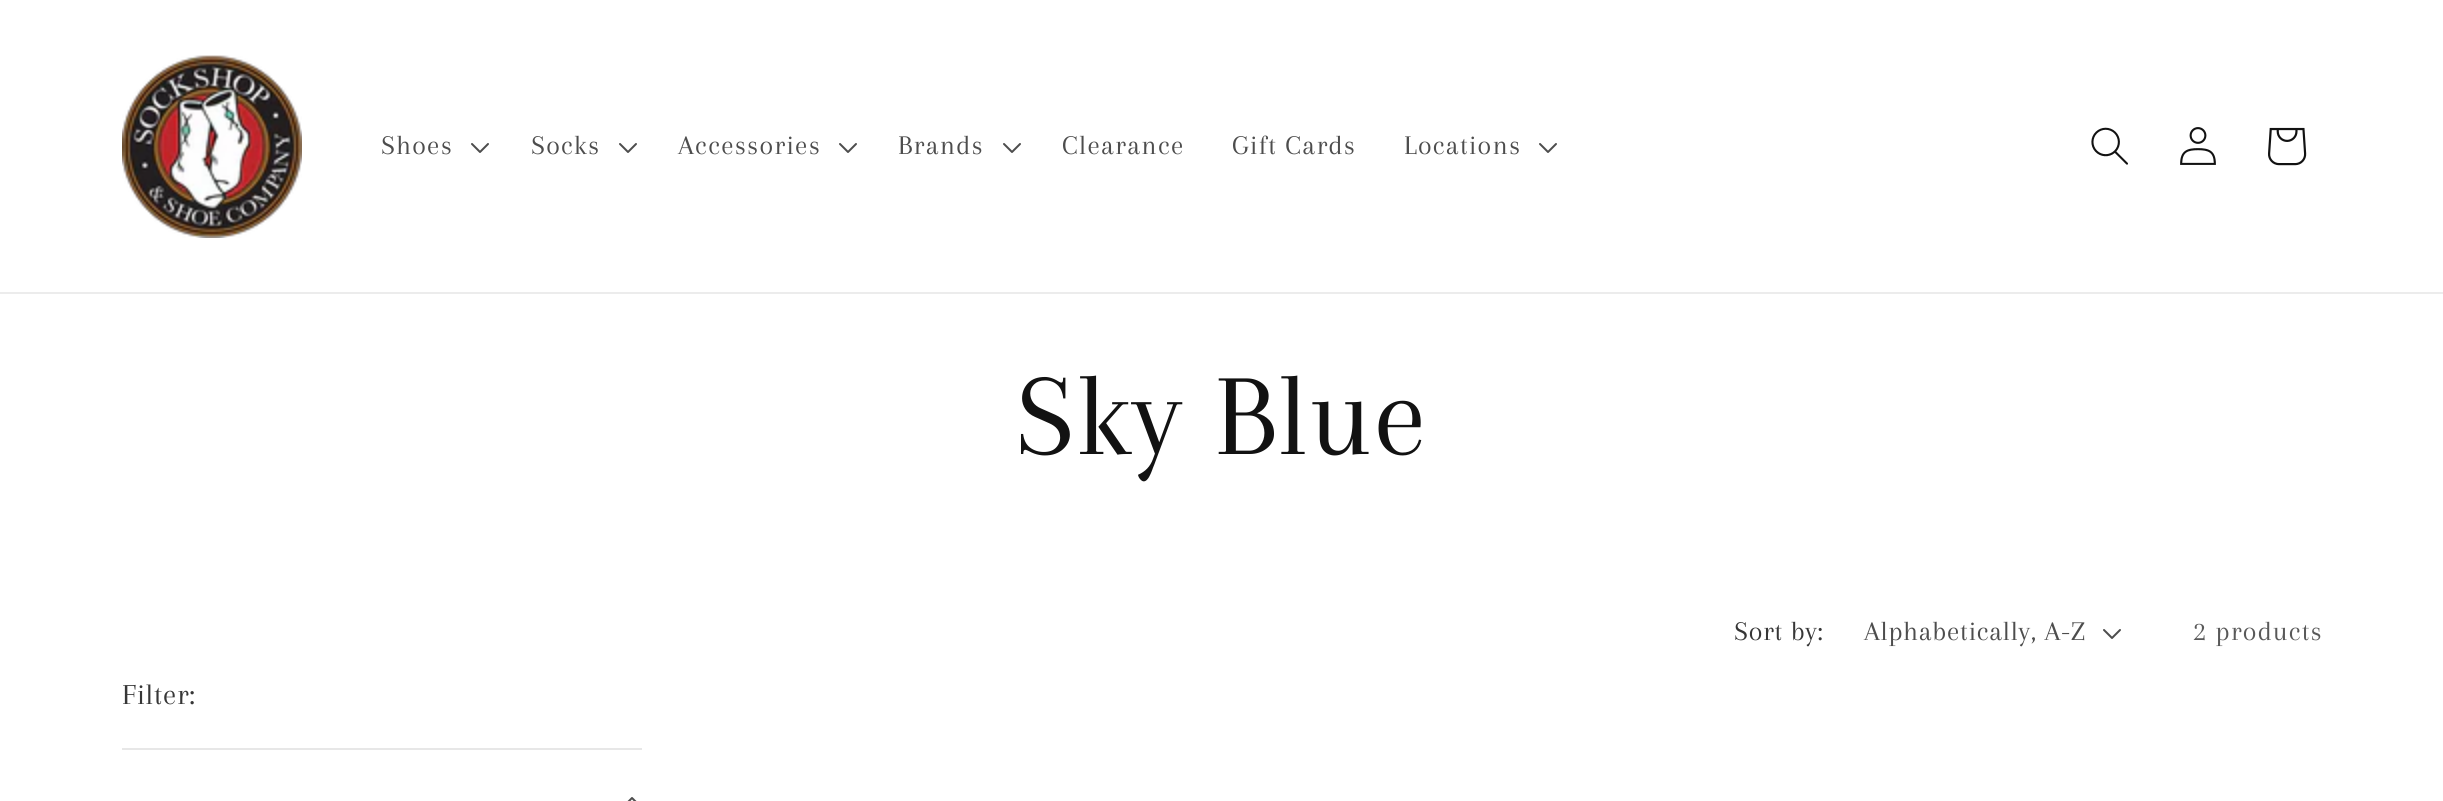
import math
import cairo


def use_color(cr, r, g, b):
  cr.set_source_rgb(r / 255, g / 255, b / 255)

def spaced_text(cr, x, y, s, letter, word):
  cr.move_to(x, y)
  for ch in s:
    cr.show_text(ch)
    cr.rel_move_to(letter + word * (ch == ' '), 0)

def box(cr, x, y, w, h, *color):
  use_color(cr, *color)
  cr.rectangle(x, y, w, h)
  cr.fill()

def picture(cr, path, x, y, w, h):
  cr.save()
  cr.set_source_surface(cairo.ImageSurface.create_from_png(path), x, y)
  cr.rectangle(x, y, w, h)
  cr.fill()
  cr.restore()

def draw(cr):
  use_color(cr, 255, 255, 255)
  cr.paint()
  box(cr, 0, 292, 2443, 2, 236, 236, 236)
  picture(cr, "img_01.png", 122, 55, 180, 183)
  picture(cr, "img_02.png", 471, 143, 18, 10)
  picture(cr, "img_02.png", 619, 143, 18, 10)
  picture(cr, "img_02.png", 839, 143, 18, 10)
  picture(cr, "img_02.png", 1003, 143, 18, 10)
  picture(cr, "img_02.png", 1539, 143, 18, 10)
  picture(cr, "img_03.png", 2091, 127, 37, 38)
  picture(cr, "img_04.png", 2180, 127, 36, 38)
  picture(cr, "img_05.png", 2268, 127, 39, 39)
  picture(cr, "img_02.png", 2103, 629, 18, 10)
  box(cr, 122, 748, 520, 2, 231, 231, 231)
  picture(cr, "img_06.png", 627, 797, 10, 4)
  cr.select_font_face("Arapey")
  cr.set_font_size(28)
  use_color(cr, 77, 77, 77)
  spaced_text(cr, 381, 154, "Shoes", 1.25, 0)
  spaced_text(cr, 531, 154, "Socks", 1.25, 0)
  spaced_text(cr, 678, 154, "Accessories", 1.25, 0)
  spaced_text(cr, 898, 154, "Brands", 1.25, 0)
  spaced_text(cr, 1062, 154, "Clearance", 1.25, 0)
  spaced_text(cr, 1232, 154, "Gift Cards", 1.25, 0)
  spaced_text(cr, 1404, 154, "Locations", 1.25, 0)
  cr.set_font_size(120)
  use_color(cr, 18, 18, 18)
  spaced_text(cr, 1015, 454, "Sky Blue", 1.75, 0)
  cr.set_font_size(28)
  use_color(cr, 54, 54, 54)
  spaced_text(cr, 1734, 640, "Sort by:", 0.75, 0)
  use_color(cr, 77, 77, 77)
  spaced_text(cr, 1864, 640, "Alphabetically, A-Z", 0.75, 0)
  use_color(cr, 89, 89, 89)
  spaced_text(cr, 2193, 640, "2 products", 1.25, 0)
  cr.set_font_size(30)
  use_color(cr, 54, 54, 54)
  spaced_text(cr, 122, 704, "Filter:", 0.75, 0)


surface = cairo.ImageSurface(cairo.FORMAT_RGB24, 2443, 801)
cr = cairo.Context(surface)
options = cairo.FontOptions()
options.set_hint_metrics(cairo.HINT_METRICS_OFF)
options.set_hint_style(cairo.HINT_STYLE_NONE)
cr.set_font_options(options)
cr.set_miter_limit(4)
draw(cr)
surface.write_to_png("out.png")
